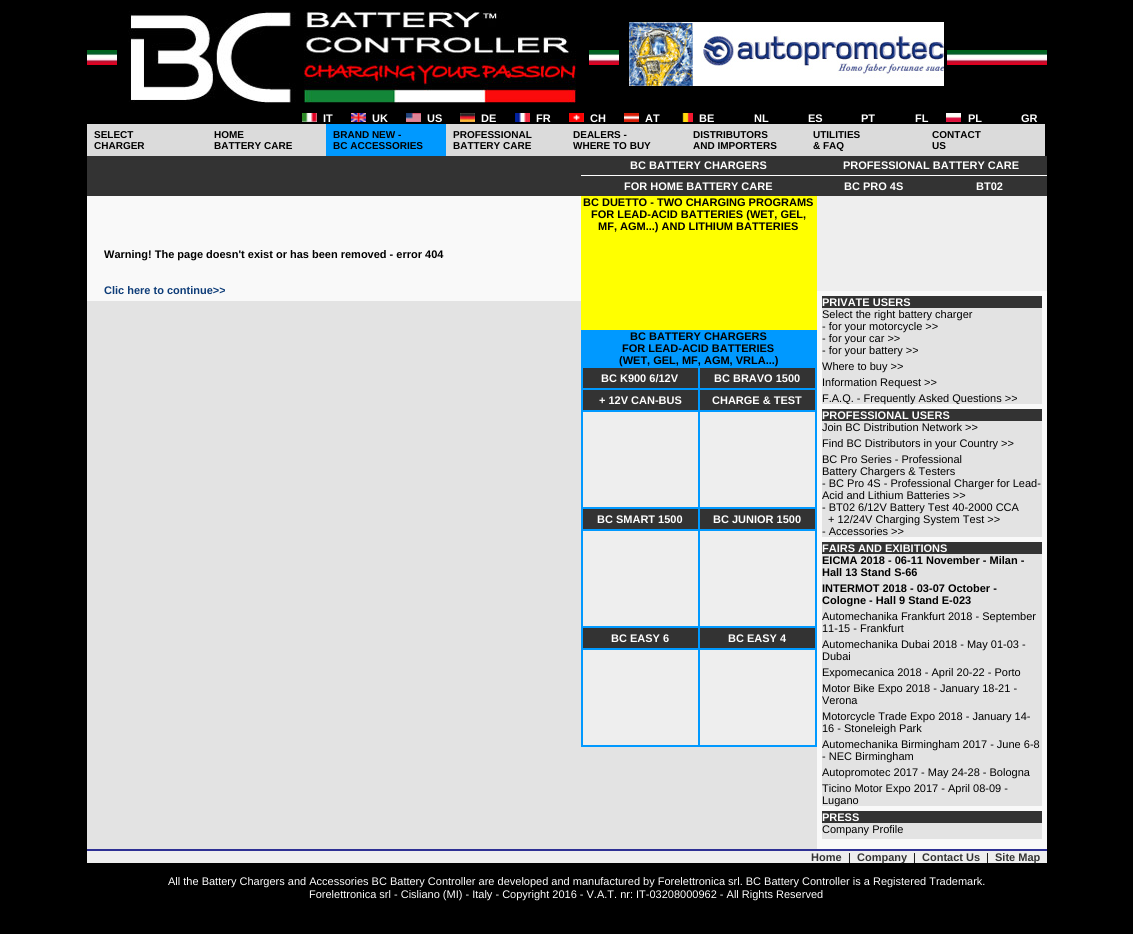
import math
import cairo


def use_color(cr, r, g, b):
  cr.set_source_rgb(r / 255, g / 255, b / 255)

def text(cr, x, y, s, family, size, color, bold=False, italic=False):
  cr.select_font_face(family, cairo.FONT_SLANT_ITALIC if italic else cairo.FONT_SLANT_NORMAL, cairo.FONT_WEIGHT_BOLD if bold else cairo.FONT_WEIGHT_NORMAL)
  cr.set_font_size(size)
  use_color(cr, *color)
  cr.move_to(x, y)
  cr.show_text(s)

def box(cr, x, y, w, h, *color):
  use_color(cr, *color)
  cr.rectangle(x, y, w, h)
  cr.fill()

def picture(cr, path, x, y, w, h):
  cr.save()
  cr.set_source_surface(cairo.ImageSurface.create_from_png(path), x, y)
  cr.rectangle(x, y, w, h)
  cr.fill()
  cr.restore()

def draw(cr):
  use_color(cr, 0, 0, 0)
  cr.paint()
  picture(cr, "img_01.png", 87, 50, 30, 15)
  picture(cr, "img_02.png", 128, 11, 448, 92)
  picture(cr, "img_01.png", 589, 50, 30, 15)
  picture(cr, "img_03.png", 629, 22, 315, 64)
  picture(cr, "img_04.png", 947, 50, 100, 15)
  picture(cr, "img_05.png", 302, 113, 15, 9)
  picture(cr, "img_06.png", 351, 113, 15, 9)
  picture(cr, "img_07.png", 406, 113, 15, 9)
  picture(cr, "img_08.png", 460, 113, 15, 9)
  picture(cr, "img_09.png", 515, 113, 15, 9)
  picture(cr, "img_10.png", 569, 113, 15, 9)
  picture(cr, "img_11.png", 624, 113, 15, 9)
  picture(cr, "img_12.png", 682, 113, 11, 9)
  picture(cr, "img_13.png", 946, 113, 15, 9)
  box(cr, 87, 124, 239, 32, 219, 219, 219)
  box(cr, 326, 124, 120, 32, 0, 153, 255)
  box(cr, 446, 124, 599, 32, 219, 219, 219)
  box(cr, 87, 301, 730, 548, 227, 227, 227)
  box(cr, 87, 156, 494, 40, 51, 51, 51)
  box(cr, 87, 196, 494, 105, 249, 249, 249)
  box(cr, 581, 156, 466, 19, 51, 51, 51)
  box(cr, 581, 175, 466, 1, 255, 255, 255)
  box(cr, 581, 176, 466, 20, 51, 51, 51)
  box(cr, 581, 196, 236, 134, 255, 255, 0)
  box(cr, 581, 330, 236, 417, 0, 153, 255)
  box(cr, 583, 368, 115, 20, 51, 51, 51)
  box(cr, 700, 368, 115, 20, 51, 51, 51)
  box(cr, 583, 390, 115, 20, 51, 51, 51)
  box(cr, 700, 390, 115, 20, 51, 51, 51)
  box(cr, 583, 412, 115, 95, 238, 238, 238)
  box(cr, 700, 412, 115, 95, 238, 238, 238)
  box(cr, 583, 509, 115, 20, 51, 51, 51)
  box(cr, 700, 509, 115, 20, 51, 51, 51)
  box(cr, 583, 531, 115, 95, 238, 238, 238)
  box(cr, 700, 531, 115, 95, 238, 238, 238)
  box(cr, 583, 628, 115, 20, 51, 51, 51)
  box(cr, 700, 628, 115, 20, 51, 51, 51)
  box(cr, 583, 650, 115, 95, 238, 238, 238)
  box(cr, 700, 650, 115, 95, 238, 238, 238)
  box(cr, 817, 291, 230, 558, 249, 249, 249)
  box(cr, 817, 196, 230, 95, 238, 238, 238)
  box(cr, 822, 296, 220, 12, 51, 51, 51)
  box(cr, 822, 308, 220, 96, 227, 227, 227)
  box(cr, 822, 409, 220, 12, 51, 51, 51)
  box(cr, 822, 421, 220, 116, 227, 227, 227)
  box(cr, 822, 542, 220, 12, 51, 51, 51)
  box(cr, 822, 554, 220, 252, 227, 227, 227)
  box(cr, 822, 811, 220, 12, 51, 51, 51)
  box(cr, 822, 823, 220, 16, 227, 227, 227)
  box(cr, 87, 851, 960, 12, 238, 238, 238)
  box(cr, 87, 849, 960, 2, 46, 48, 148)
  text(cr, 323, 122, "IT", "Liberation Sans", 11, (255, 255, 255), bold=True)
  text(cr, 372, 122, "UK", "Liberation Sans", 11, (255, 255, 255), bold=True)
  text(cr, 427, 122, "US", "Liberation Sans", 11, (255, 255, 255), bold=True)
  text(cr, 481, 122, "DE", "Liberation Sans", 11, (255, 255, 255), bold=True)
  text(cr, 536, 122, "FR", "Liberation Sans", 11, (255, 255, 255), bold=True)
  text(cr, 590, 122, "CH", "Liberation Sans", 11, (255, 255, 255), bold=True)
  text(cr, 645, 122, "AT", "Liberation Sans", 11, (255, 255, 255), bold=True)
  text(cr, 699, 122, "BE", "Liberation Sans", 11, (255, 255, 255), bold=True)
  text(cr, 754, 122, "NL", "Liberation Sans", 11, (255, 255, 255), bold=True)
  text(cr, 808, 122, "ES", "Liberation Sans", 11, (255, 255, 255), bold=True)
  text(cr, 861, 122, "PT", "Liberation Sans", 11, (255, 255, 255), bold=True)
  text(cr, 915, 122, "FL", "Liberation Sans", 11, (255, 255, 255), bold=True)
  text(cr, 968, 122, "PL", "Liberation Sans", 11, (255, 255, 255), bold=True)
  text(cr, 1021, 122, "GR", "Liberation Sans", 11, (255, 255, 255), bold=True)
  text(cr, 94, 138, "SELECT", "Liberation Sans", 10, (0, 0, 0), bold=True)
  text(cr, 94, 149, "CHARGER", "Liberation Sans", 10, (0, 0, 0), bold=True)
  text(cr, 214, 138, "HOME", "Liberation Sans", 10, (0, 0, 0), bold=True)
  text(cr, 214, 149, "BATTERY CARE", "Liberation Sans", 10, (0, 0, 0), bold=True)
  text(cr, 333, 138, "BRAND NEW -", "Liberation Sans", 10, (0, 0, 0), bold=True)
  text(cr, 333, 149, "BC ACCESSORIES", "Liberation Sans", 10, (0, 0, 0), bold=True)
  text(cr, 453, 138, "PROFESSIONAL", "Liberation Sans", 10, (0, 0, 0), bold=True)
  text(cr, 453, 149, "BATTERY CARE", "Liberation Sans", 10, (0, 0, 0), bold=True)
  text(cr, 573, 138, "DEALERS -", "Liberation Sans", 10, (0, 0, 0), bold=True)
  text(cr, 573, 149, "WHERE TO BUY", "Liberation Sans", 10, (0, 0, 0), bold=True)
  text(cr, 693, 138, "DISTRIBUTORS", "Liberation Sans", 10, (0, 0, 0), bold=True)
  text(cr, 693, 149, "AND IMPORTERS", "Liberation Sans", 10, (0, 0, 0), bold=True)
  text(cr, 813, 138, "UTILITIES", "Liberation Sans", 10, (0, 0, 0), bold=True)
  text(cr, 813, 149, "& FAQ", "Liberation Sans", 10, (0, 0, 0), bold=True)
  text(cr, 932, 138, "CONTACT", "Liberation Sans", 10, (0, 0, 0), bold=True)
  text(cr, 932, 149, "US", "Liberation Sans", 10, (0, 0, 0), bold=True)
  text(cr, 104, 258, "Warning! The page doesn't exist or has been removed - error 404", "Liberation Sans", 11, (0, 0, 0), bold=True)
  text(cr, 104, 294, "Clic here to continue>>", "Liberation Sans", 11, (13, 60, 120), bold=True)
  text(cr, 630, 169, "BC BATTERY CHARGERS", "Liberation Sans", 11, (255, 255, 255), bold=True)
  text(cr, 624, 190, "FOR HOME BATTERY CARE", "Liberation Sans", 11, (255, 255, 255), bold=True)
  text(cr, 583, 206, "BC DUETTO - TWO CHARGING PROGRAMS", "Liberation Sans", 11, (0, 0, 0), bold=True)
  text(cr, 591, 218, "FOR LEAD-ACID BATTERIES (WET, GEL,", "Liberation Sans", 11, (0, 0, 0), bold=True)
  text(cr, 598, 230, "MF, AGM...) AND LITHIUM BATTERIES", "Liberation Sans", 11, (0, 0, 0), bold=True)
  text(cr, 630, 340, "BC BATTERY CHARGERS", "Liberation Sans", 11, (0, 0, 0), bold=True)
  text(cr, 622, 352, "FOR LEAD-ACID BATTERIES", "Liberation Sans", 11, (0, 0, 0), bold=True)
  text(cr, 619, 364, "(WET, GEL, MF, AGM, VRLA...)", "Liberation Sans", 11, (0, 0, 0), bold=True)
  text(cr, 601, 382, "BC K900 6/12V", "Liberation Sans", 11, (255, 255, 255), bold=True)
  text(cr, 714, 382, "BC BRAVO 1500", "Liberation Sans", 11, (255, 255, 255), bold=True)
  text(cr, 599, 404, "+ 12V CAN-BUS", "Liberation Sans", 11, (255, 255, 255), bold=True)
  text(cr, 712, 404, "CHARGE & TEST", "Liberation Sans", 11, (255, 255, 255), bold=True)
  text(cr, 597, 523, "BC SMART 1500", "Liberation Sans", 11, (255, 255, 255), bold=True)
  text(cr, 713, 523, "BC JUNIOR 1500", "Liberation Sans", 11, (255, 255, 255), bold=True)
  text(cr, 611, 642, "BC EASY 6", "Liberation Sans", 11, (255, 255, 255), bold=True)
  text(cr, 728, 642, "BC EASY 4", "Liberation Sans", 11, (255, 255, 255), bold=True)
  text(cr, 843, 169, "PROFESSIONAL BATTERY CARE", "Liberation Sans", 11, (255, 255, 255), bold=True)
  text(cr, 844, 190, "BC PRO 4S", "Liberation Sans", 11, (255, 255, 255), bold=True)
  text(cr, 976, 190, "BT02", "Liberation Sans", 11, (255, 255, 255), bold=True)
  text(cr, 822, 306, "PRIVATE USERS", "Liberation Sans", 11, (255, 255, 255), bold=True)
  text(cr, 822, 318, "Select the right battery charger", "Liberation Sans", 11, (0, 0, 0))
  text(cr, 822, 330, "- for your motorcycle >>", "Liberation Sans", 11, (0, 0, 0))
  text(cr, 822, 342, "- for your car >>", "Liberation Sans", 11, (0, 0, 0))
  text(cr, 822, 354, "- for your battery >>", "Liberation Sans", 11, (0, 0, 0))
  text(cr, 822, 370, "Where to buy >>", "Liberation Sans", 11, (0, 0, 0))
  text(cr, 822, 386, "Information Request >>", "Liberation Sans", 11, (0, 0, 0))
  text(cr, 822, 402, "F.A.Q. - Frequently Asked Questions >>", "Liberation Sans", 11, (0, 0, 0))
  text(cr, 822, 419, "PROFESSIONAL USERS", "Liberation Sans", 11, (255, 255, 255), bold=True)
  text(cr, 822, 431, "Join BC Distribution Network >>", "Liberation Sans", 11, (0, 0, 0))
  text(cr, 822, 447, "Find BC Distributors in your Country >>", "Liberation Sans", 11, (0, 0, 0))
  text(cr, 822, 463, "BC Pro Series - Professional", "Liberation Sans", 11, (0, 0, 0))
  text(cr, 822, 475, "Battery Chargers & Testers", "Liberation Sans", 11, (0, 0, 0))
  text(cr, 822, 487, "- BC Pro 4S - Professional Charger for Lead-", "Liberation Sans", 11, (0, 0, 0))
  text(cr, 822, 499, "Acid and Lithium Batteries >>", "Liberation Sans", 11, (0, 0, 0))
  text(cr, 822, 511, "- BT02 6/12V Battery Test 40-2000 CCA", "Liberation Sans", 11, (0, 0, 0))
  text(cr, 828, 523, "+ 12/24V Charging System Test >>", "Liberation Sans", 11, (0, 0, 0))
  text(cr, 822, 535, "- Accessories >>", "Liberation Sans", 11, (0, 0, 0))
  text(cr, 822, 552, "FAIRS AND EXIBITIONS", "Liberation Sans", 11, (255, 255, 255), bold=True)
  text(cr, 822, 564, "EICMA 2018 - 06-11 November - Milan -", "Liberation Sans", 11, (0, 0, 0), bold=True)
  text(cr, 822, 576, "Hall 13 Stand S-66", "Liberation Sans", 11, (0, 0, 0), bold=True)
  text(cr, 822, 592, "INTERMOT 2018 - 03-07 October -", "Liberation Sans", 11, (0, 0, 0), bold=True)
  text(cr, 822, 604, "Cologne - Hall 9 Stand E-023", "Liberation Sans", 11, (0, 0, 0), bold=True)
  text(cr, 822, 620, "Automechanika Frankfurt 2018 - September", "Liberation Sans", 11, (0, 0, 0))
  text(cr, 822, 632, "11-15 - Frankfurt", "Liberation Sans", 11, (0, 0, 0))
  text(cr, 822, 648, "Automechanika Dubai 2018 - May 01-03 -", "Liberation Sans", 11, (0, 0, 0))
  text(cr, 822, 660, "Dubai", "Liberation Sans", 11, (0, 0, 0))
  text(cr, 822, 676, "Expomecanica 2018 - April 20-22 - Porto", "Liberation Sans", 11, (0, 0, 0))
  text(cr, 822, 692, "Motor Bike Expo 2018 - January 18-21 -", "Liberation Sans", 11, (0, 0, 0))
  text(cr, 822, 704, "Verona", "Liberation Sans", 11, (0, 0, 0))
  text(cr, 822, 720, "Motorcycle Trade Expo 2018 - January 14-", "Liberation Sans", 11, (0, 0, 0))
  text(cr, 822, 732, "16 - Stoneleigh Park", "Liberation Sans", 11, (0, 0, 0))
  text(cr, 822, 748, "Automechanika Birmingham 2017 - June 6-8", "Liberation Sans", 11, (0, 0, 0))
  text(cr, 822, 760, "- NEC Birmingham", "Liberation Sans", 11, (0, 0, 0))
  text(cr, 822, 776, "Autopromotec 2017 - May 24-28 - Bologna", "Liberation Sans", 11, (0, 0, 0))
  text(cr, 822, 792, "Ticino Motor Expo 2017 - April 08-09 -", "Liberation Sans", 11, (0, 0, 0))
  text(cr, 822, 804, "Lugano", "Liberation Sans", 11, (0, 0, 0))
  text(cr, 822, 821, "PRESS", "Liberation Sans", 11, (255, 255, 255), bold=True)
  text(cr, 822, 833, "Company Profile", "Liberation Sans", 11, (0, 0, 0))
  text(cr, 811, 861, "Home", "Liberation Sans", 11, (51, 51, 51), bold=True)
  text(cr, 848, 861, "|", "Liberation Sans", 11, (0, 0, 0))
  text(cr, 857, 861, "Company", "Liberation Sans", 11, (51, 51, 51), bold=True)
  text(cr, 913, 861, "|", "Liberation Sans", 11, (0, 0, 0))
  text(cr, 922, 861, "Contact Us", "Liberation Sans", 11, (51, 51, 51), bold=True)
  text(cr, 986, 861, "|", "Liberation Sans", 11, (0, 0, 0))
  text(cr, 995, 861, "Site Map", "Liberation Sans", 11, (51, 51, 51), bold=True)
  text(cr, 168, 885, "All the Battery Chargers and Accessories BC Battery Controller are developed and manufactured by Forelettronica srl. BC Battery Controller is a Registered Trademark.", "Liberation Sans", 11, (255, 255, 255))
  text(cr, 309, 898, "Forelettronica srl - Cisliano (MI) - Italy - Copyright 2016 - V.A.T. nr: IT-03208000962 - All Rights Reserved", "Liberation Sans", 11, (255, 255, 255))


surface = cairo.ImageSurface(cairo.FORMAT_RGB24, 1133, 934)
cr = cairo.Context(surface)
options = cairo.FontOptions()
options.set_hint_metrics(cairo.HINT_METRICS_OFF)
options.set_hint_style(cairo.HINT_STYLE_NONE)
cr.set_font_options(options)
cr.set_miter_limit(4)
draw(cr)
surface.write_to_png("out.png")
